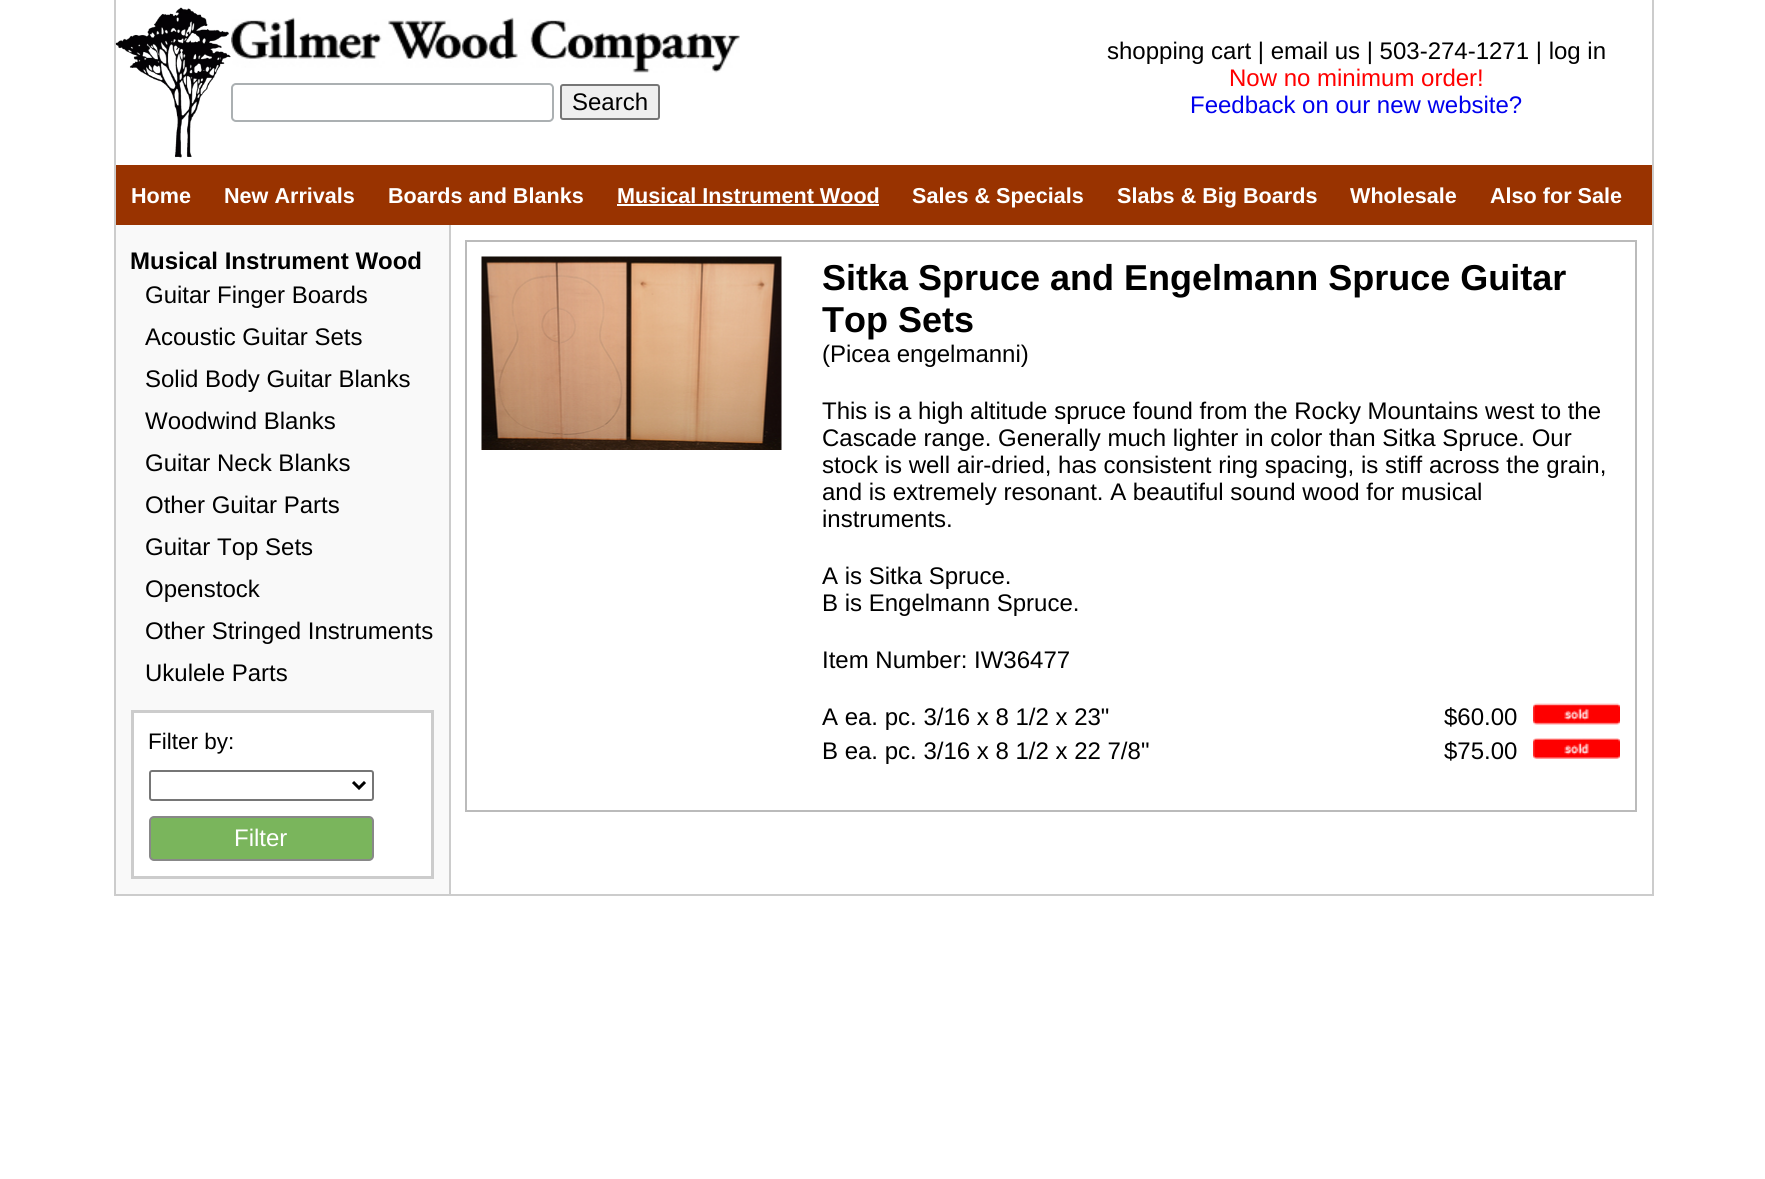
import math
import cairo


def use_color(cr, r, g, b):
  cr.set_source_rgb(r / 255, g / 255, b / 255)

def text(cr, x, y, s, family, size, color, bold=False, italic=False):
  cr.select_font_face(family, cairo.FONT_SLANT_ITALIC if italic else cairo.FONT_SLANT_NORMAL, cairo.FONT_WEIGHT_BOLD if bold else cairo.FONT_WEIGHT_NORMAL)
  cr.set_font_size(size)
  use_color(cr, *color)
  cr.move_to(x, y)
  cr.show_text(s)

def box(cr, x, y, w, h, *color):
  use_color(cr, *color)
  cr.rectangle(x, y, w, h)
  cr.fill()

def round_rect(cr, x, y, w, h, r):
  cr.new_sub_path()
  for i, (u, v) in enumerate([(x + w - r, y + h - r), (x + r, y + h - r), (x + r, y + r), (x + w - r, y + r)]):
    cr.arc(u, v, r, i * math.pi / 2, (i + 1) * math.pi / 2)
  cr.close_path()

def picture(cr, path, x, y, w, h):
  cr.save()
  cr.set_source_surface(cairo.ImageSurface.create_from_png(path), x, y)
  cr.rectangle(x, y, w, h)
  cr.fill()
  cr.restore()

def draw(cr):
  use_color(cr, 255, 255, 255)
  cr.paint()
  box(cr, 1652, 0, 2, 896, 204, 204, 204)
  box(cr, 114, 894, 1539, 2, 204, 204, 204)
  box(cr, 114, 0, 2, 896, 204, 204, 204)
  picture(cr, "img_01.png", 115, 7, 116, 151)
  picture(cr, "img_02.png", 231, 17, 509, 56)
  round_rect(cr, 232, 84, 321, 37, 4)
  use_color(cr, 171, 176, 178)
  cr.stroke()
  use_color(cr, 239, 239, 239)
  round_rect(cr, 561, 85, 98, 34, 2)
  cr.fill_preserve()
  use_color(cr, 118, 118, 118)
  cr.stroke()
  box(cr, 116, 165, 1536, 60, 153, 51, 0)
  box(cr, 617, 204, 262, 2, 255, 255, 255)
  box(cr, 116, 225, 333, 669, 249, 249, 249)
  box(cr, 449, 225, 2, 669, 204, 204, 204)
  use_color(cr, 255, 255, 255)
  cr.rectangle(132.5, 711.5, 300, 166)
  cr.fill_preserve()
  use_color(cr, 204, 204, 204)
  cr.set_line_width(3)
  cr.stroke()
  round_rect(cr, 150, 771, 223, 29, 2)
  use_color(cr, 118, 118, 118)
  cr.set_line_width(2)
  cr.stroke()
  cr.new_path()
  cr.move_to(353, 782)
  cr.line_to(359, 788)
  cr.line_to(365, 782)
  use_color(cr, 0, 0, 0)
  cr.set_line_width(3)
  cr.stroke()
  use_color(cr, 122, 181, 92)
  round_rect(cr, 150, 817, 223, 43, 4)
  cr.fill_preserve()
  use_color(cr, 136, 136, 136)
  cr.set_line_width(2)
  cr.stroke()
  cr.rectangle(466, 241, 1170, 570)
  use_color(cr, 187, 187, 187)
  cr.stroke()
  picture(cr, "img_03.png", 481, 256, 301, 194)
  picture(cr, "img_04.png", 1533, 703, 87, 22)
  picture(cr, "img_05.png", 1533, 738, 87, 21)
  text(cr, 1107, 59, "shopping cart | email us | 503-274-1271 | log in", "Liberation Sans", 24, (0, 0, 0))
  text(cr, 1229, 86, "Now no minimum order!", "Liberation Sans", 24, (255, 0, 0))
  text(cr, 1190, 113, "Feedback on our new website?", "Liberation Sans", 24, (0, 0, 238))
  text(cr, 572, 110, "Search", "Liberation Sans", 24, (0, 0, 0))
  text(cr, 131, 203, "Home", "Liberation Sans", 21.6, (255, 255, 255), bold=True)
  text(cr, 224, 203, "New Arrivals", "Liberation Sans", 21.6, (255, 255, 255), bold=True)
  text(cr, 388, 203, "Boards and Blanks", "Liberation Sans", 21.6, (255, 255, 255), bold=True)
  text(cr, 617, 203, "Musical Instrument Wood", "Liberation Sans", 21.6, (255, 255, 255), bold=True)
  text(cr, 912, 203, "Sales & Specials", "Liberation Sans", 21.6, (255, 255, 255), bold=True)
  text(cr, 1117, 203, "Slabs & Big Boards", "Liberation Sans", 21.6, (255, 255, 255), bold=True)
  text(cr, 1350, 203, "Wholesale", "Liberation Sans", 21.6, (255, 255, 255), bold=True)
  text(cr, 1490, 203, "Also for Sale", "Liberation Sans", 21.6, (255, 255, 255), bold=True)
  text(cr, 130, 269, "Musical Instrument Wood", "Liberation Sans", 24, (0, 0, 0), bold=True)
  text(cr, 145, 303, "Guitar Finger Boards", "Liberation Sans", 24, (0, 0, 0))
  text(cr, 145, 345, "Acoustic Guitar Sets", "Liberation Sans", 24, (0, 0, 0))
  text(cr, 145, 387, "Solid Body Guitar Blanks", "Liberation Sans", 24, (0, 0, 0))
  text(cr, 145, 429, "Woodwind Blanks", "Liberation Sans", 24, (0, 0, 0))
  text(cr, 145, 471, "Guitar Neck Blanks", "Liberation Sans", 24, (0, 0, 0))
  text(cr, 145, 513, "Other Guitar Parts", "Liberation Sans", 24, (0, 0, 0))
  text(cr, 145, 555, "Guitar Top Sets", "Liberation Sans", 24, (0, 0, 0))
  text(cr, 145, 597, "Openstock", "Liberation Sans", 24, (0, 0, 0))
  text(cr, 145, 639, "Other Stringed Instruments", "Liberation Sans", 24, (0, 0, 0))
  text(cr, 145, 681, "Ukulele Parts", "Liberation Sans", 24, (0, 0, 0))
  text(cr, 148, 749, "Filter by:", "Liberation Sans", 22.5, (0, 0, 0))
  text(cr, 234, 846, "Filter", "Liberation Sans", 24, (255, 255, 255))
  text(cr, 822, 290, "Sitka Spruce and Engelmann Spruce Guitar", "Liberation Sans", 36, (0, 0, 0), bold=True)
  text(cr, 822, 332, "Top Sets", "Liberation Sans", 36, (0, 0, 0), bold=True)
  text(cr, 822, 362, "(Picea engelmanni)", "Liberation Sans", 24, (0, 0, 0))
  text(cr, 822, 419, "This is a high altitude spruce found from the Rocky Mountains west to the", "Liberation Sans", 24, (0, 0, 0))
  text(cr, 822, 446, "Cascade range. Generally much lighter in color than Sitka Spruce. Our", "Liberation Sans", 24, (0, 0, 0))
  text(cr, 822, 473, "stock is well air-dried, has consistent ring spacing, is stiff across the grain,", "Liberation Sans", 24, (0, 0, 0))
  text(cr, 822, 500, "and is extremely resonant. A beautiful sound wood for musical", "Liberation Sans", 24, (0, 0, 0))
  text(cr, 822, 527, "instruments.", "Liberation Sans", 24, (0, 0, 0))
  text(cr, 822, 584, "A is Sitka Spruce.", "Liberation Sans", 24, (0, 0, 0))
  text(cr, 822, 611, "B is Engelmann Spruce.", "Liberation Sans", 24, (0, 0, 0))
  text(cr, 822, 668, "Item Number: IW36477", "Liberation Sans", 24, (0, 0, 0))
  text(cr, 822, 725, "A ea. pc. 3/16 x 8 1/2 x 23\"", "Liberation Sans", 24, (0, 0, 0))
  text(cr, 1444, 725, "$60.00", "Liberation Sans", 24, (0, 0, 0))
  text(cr, 822, 759, "B ea. pc. 3/16 x 8 1/2 x 22 7/8\"", "Liberation Sans", 24, (0, 0, 0))
  text(cr, 1444, 759, "$75.00", "Liberation Sans", 24, (0, 0, 0))


surface = cairo.ImageSurface(cairo.FORMAT_RGB24, 1765, 1179)
cr = cairo.Context(surface)
options = cairo.FontOptions()
options.set_hint_metrics(cairo.HINT_METRICS_OFF)
options.set_hint_style(cairo.HINT_STYLE_NONE)
cr.set_font_options(options)
cr.set_miter_limit(4)
draw(cr)
surface.write_to_png("out.png")
